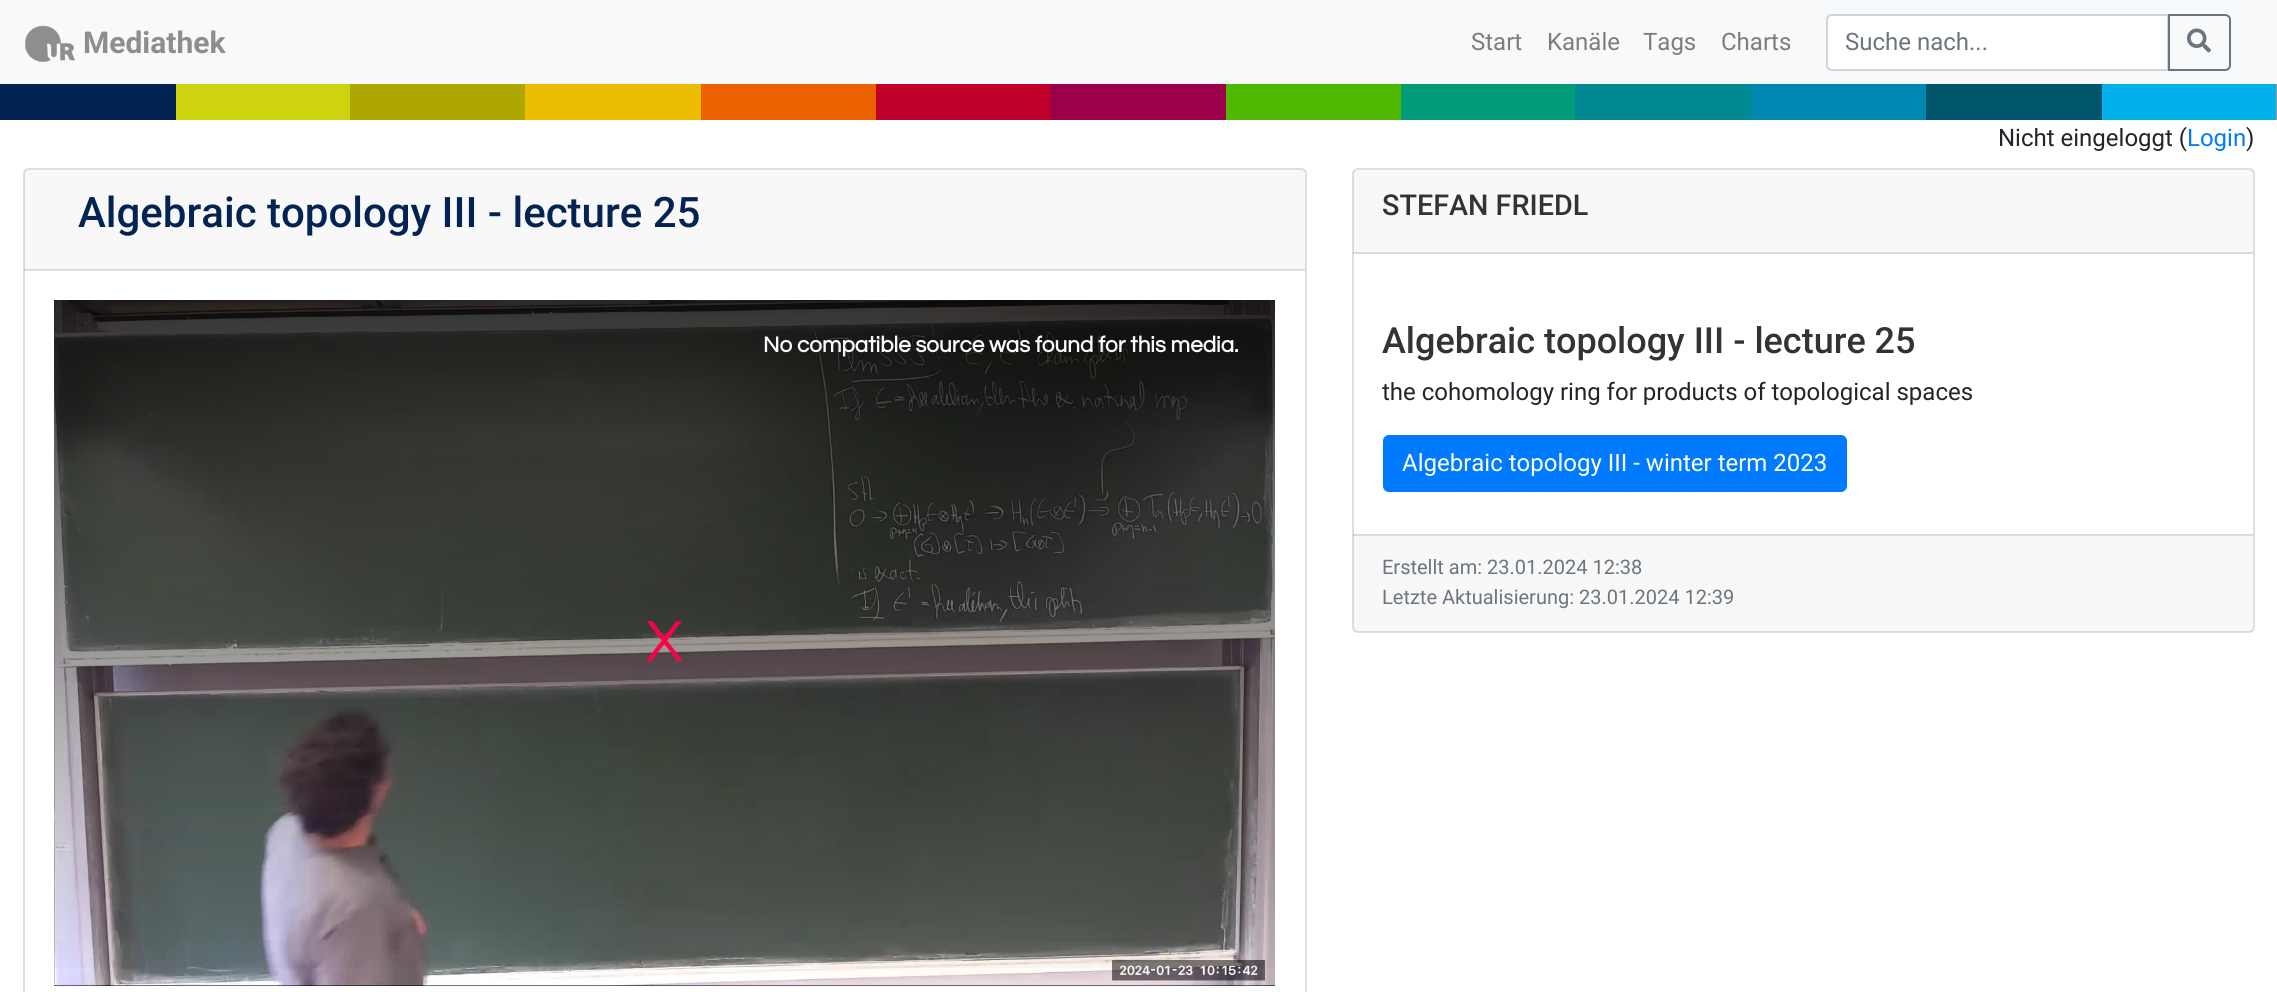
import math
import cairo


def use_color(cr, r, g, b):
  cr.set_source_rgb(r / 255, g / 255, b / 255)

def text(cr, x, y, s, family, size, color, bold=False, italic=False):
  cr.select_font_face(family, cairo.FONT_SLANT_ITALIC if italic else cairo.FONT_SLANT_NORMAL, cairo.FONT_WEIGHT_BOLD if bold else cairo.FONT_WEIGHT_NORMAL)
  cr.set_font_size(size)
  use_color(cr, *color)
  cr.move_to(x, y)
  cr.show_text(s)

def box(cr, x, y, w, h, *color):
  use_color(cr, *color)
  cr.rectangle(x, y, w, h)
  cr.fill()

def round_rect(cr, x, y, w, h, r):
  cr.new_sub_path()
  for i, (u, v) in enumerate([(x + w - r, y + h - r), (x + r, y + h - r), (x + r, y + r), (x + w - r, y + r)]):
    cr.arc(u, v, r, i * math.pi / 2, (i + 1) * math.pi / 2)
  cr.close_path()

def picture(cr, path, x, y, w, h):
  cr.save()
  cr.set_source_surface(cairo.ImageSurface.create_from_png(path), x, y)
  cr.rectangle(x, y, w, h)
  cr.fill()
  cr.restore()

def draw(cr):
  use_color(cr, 255, 255, 255)
  cr.paint()
  box(cr, 0, 0, 2277, 84, 248, 249, 250)
  picture(cr, "img_01.png", 25, 25, 50, 37)
  use_color(cr, 255, 255, 255)
  cr.new_path()
  cr.move_to(1832, 15)
  cr.line_to(2168, 15)
  cr.line_to(2168, 70)
  cr.line_to(1832, 70)
  cr.curve_to(1829, 70, 1827, 68, 1827, 65)
  cr.line_to(1827, 20)
  cr.curve_to(1827, 17, 1829, 15, 1832, 15)
  cr.close_path()
  cr.fill_preserve()
  use_color(cr, 206, 212, 218)
  cr.stroke()
  cr.new_path()
  cr.move_to(2169, 15)
  cr.line_to(2225, 15)
  cr.curve_to(2228, 15, 2230, 17, 2230, 20)
  cr.line_to(2230, 65)
  cr.curve_to(2230, 68, 2228, 70, 2225, 70)
  cr.line_to(2169, 70)
  cr.close_path()
  use_color(cr, 108, 117, 125)
  cr.stroke()
  picture(cr, "img_02.png", 2187, 28, 24, 25)
  box(cr, 2276, 84, 1, 36, 153, 153, 153)
  box(cr, 0, 84, 176, 36, 3, 35, 82)
  box(cr, 176, 84, 174, 36, 205, 211, 15)
  box(cr, 350, 84, 175, 36, 174, 167, 0)
  box(cr, 525, 84, 176, 36, 236, 188, 0)
  box(cr, 701, 84, 175, 36, 236, 98, 0)
  box(cr, 876, 84, 174, 36, 191, 0, 42)
  box(cr, 1050, 84, 176, 36, 156, 0, 75)
  box(cr, 1226, 84, 175, 36, 79, 184, 0)
  box(cr, 1401, 84, 174, 36, 0, 155, 119)
  box(cr, 1575, 84, 176, 36, 0, 137, 147)
  box(cr, 1751, 84, 175, 36, 0, 135, 178)
  box(cr, 1926, 84, 176, 36, 0, 85, 106)
  box(cr, 2102, 84, 174, 36, 0, 177, 235)
  round_rect(cr, 24, 169, 1282, 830, 5)
  use_color(cr, 223, 223, 223)
  cr.stroke()
  cr.set_source_rgba(0, 0, 0, 0.03)
  cr.rectangle(24, 170, 1281, 100)
  cr.fill()
  cr.set_source_rgba(0, 0, 0, 0.12)
  cr.rectangle(24, 269, 1281, 2)
  cr.fill()
  box(cr, 54, 985, 1221, 1, 3, 3, 3)
  picture(cr, "img_03.png", 54, 300, 1221, 686)
  gradient = cairo.LinearGradient(665, 300, 665, 986)
  gradient.add_color_stop_rgba(0, 0, 0, 0, 0.8)
  gradient.add_color_stop_rgba(1, 0, 0, 0, 0)
  cr.set_source(gradient)
  cr.rectangle(54, 300, 1221, 668)
  cr.fill()
  picture(cr, "img_04.png", 54, 985, 1221, 1)
  round_rect(cr, 1353, 169, 901, 463, 5)
  use_color(cr, 223, 223, 223)
  cr.stroke()
  cr.set_source_rgba(0, 0, 0, 0.03)
  cr.rectangle(1353, 170, 900, 84)
  cr.fill()
  cr.set_source_rgba(0, 0, 0, 0.12)
  cr.rectangle(1353, 252, 900, 2)
  cr.fill()
  use_color(cr, 0, 123, 255)
  round_rect(cr, 1384, 436, 462, 55, 5)
  cr.fill_preserve()
  cr.stroke()
  cr.set_source_rgba(0, 0, 0, 0.03)
  cr.rectangle(1353, 534, 900, 98)
  cr.fill()
  cr.set_source_rgba(0, 0, 0, 0.12)
  cr.rectangle(1353, 534, 900, 2)
  cr.fill()
  text(cr, 83, 53, "Mediathek", "Roboto", 30, (142, 142, 141), bold=True)
  text(cr, 1471, 50, "Start", "Roboto", 24, (124, 125, 125))
  text(cr, 1547, 50, "Kanäle", "Roboto", 24, (124, 125, 125))
  text(cr, 1643, 50, "Tags", "Roboto", 24, (124, 125, 125))
  text(cr, 1721, 50, "Charts", "Roboto", 24, (124, 125, 125))
  text(cr, 1845, 50, "Suche nach...", "Roboto", 24, (108, 117, 125))
  text(cr, 1998, 146, "Nicht eingeloggt (", "Roboto", 24, (33, 37, 41))
  text(cr, 2187, 146, "Login", "Roboto", 24, (0, 123, 255))
  text(cr, 2246, 146, ")", "Roboto", 24, (33, 37, 41))
  text(cr, 78, 227, "Algebraic topology III - lecture 25", "Roboto Medium", 42, (3, 35, 82))
  text(cr, 763, 352, "No compatible source was found for this media.", "Questrial", 22.5, (248, 248, 255), bold=True)
  text(cr, 646, 661, "X", "Questrial", 60, (255, 0, 72))
  text(cr, 1382, 215, "STEFAN FRIEDL", "Roboto Medium", 28.75, (51, 51, 51))
  text(cr, 1382, 353, "Algebraic topology III - lecture 25", "Roboto Medium", 36, (51, 51, 51))
  text(cr, 1382, 400, "the cohomology ring for products of topological spaces", "Roboto", 24, (33, 37, 41))
  text(cr, 1402, 471, "Algebraic topology III - winter term 2023", "Roboto", 24, (255, 255, 255))
  text(cr, 1382, 574, "Erstellt am: 23.01.2024 12:38", "Roboto", 20, (108, 117, 125))
  text(cr, 1382, 604, "Letzte Aktualisierung: 23.01.2024 12:39", "Roboto", 20, (108, 117, 125))


surface = cairo.ImageSurface(cairo.FORMAT_RGB24, 2277, 992)
cr = cairo.Context(surface)
options = cairo.FontOptions()
options.set_hint_metrics(cairo.HINT_METRICS_OFF)
options.set_hint_style(cairo.HINT_STYLE_NONE)
cr.set_font_options(options)
cr.set_miter_limit(4)
draw(cr)
surface.write_to_png("out.png")
